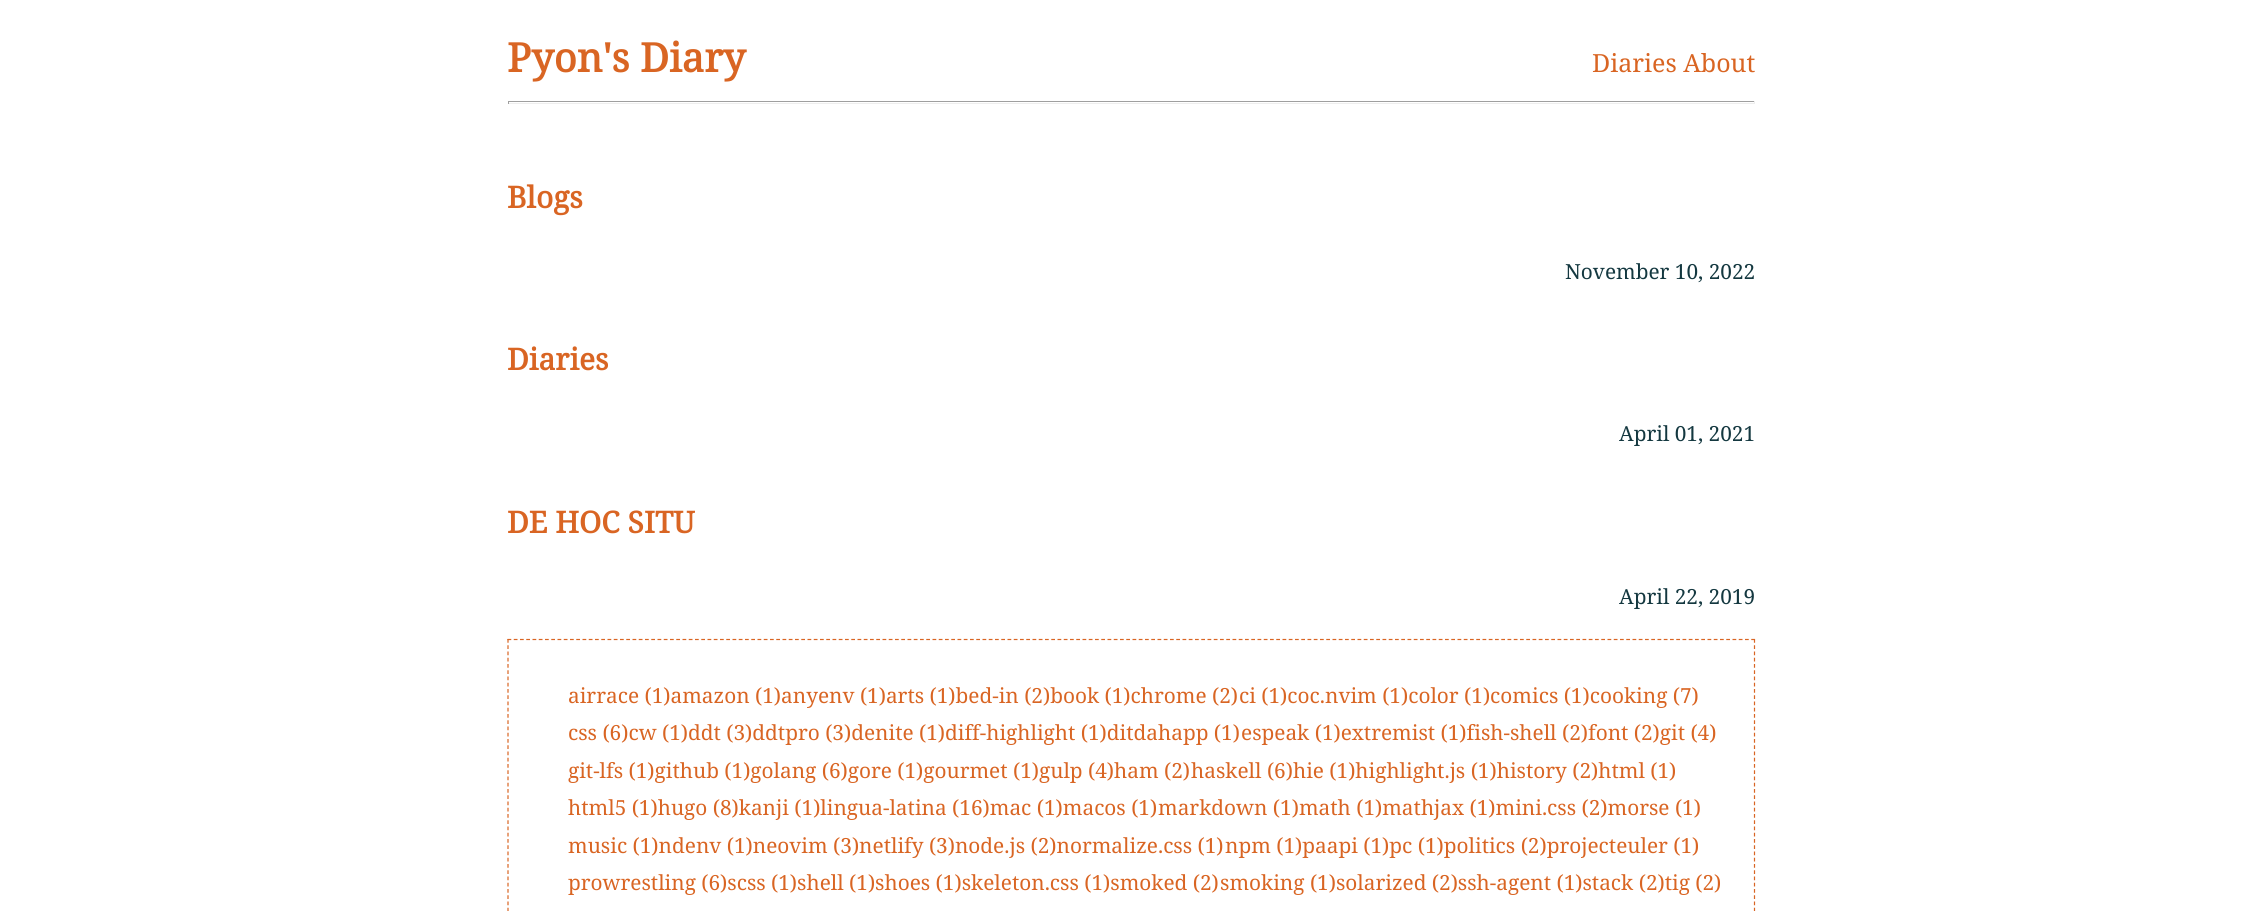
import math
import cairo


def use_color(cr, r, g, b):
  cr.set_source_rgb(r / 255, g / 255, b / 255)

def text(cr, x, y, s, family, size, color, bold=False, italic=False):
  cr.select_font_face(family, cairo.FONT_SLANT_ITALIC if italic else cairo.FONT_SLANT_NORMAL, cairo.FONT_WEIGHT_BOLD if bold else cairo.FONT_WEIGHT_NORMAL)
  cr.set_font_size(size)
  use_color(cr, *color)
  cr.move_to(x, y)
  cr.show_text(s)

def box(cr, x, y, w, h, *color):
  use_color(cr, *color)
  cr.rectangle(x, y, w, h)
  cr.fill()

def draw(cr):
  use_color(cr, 255, 255, 255)
  cr.paint()
  box(cr, 508, 101, 1247, 1, 159, 159, 159)
  box(cr, 1754, 101, 1, 3, 238, 238, 238)
  box(cr, 508, 103, 1247, 1, 238, 238, 238)
  box(cr, 508, 101, 1, 3, 159, 159, 159)
  cr.new_path()
  cr.move_to(507.5, 639.5)
  cr.line_to(1755, 639.5)
  use_color(cr, 217, 101, 35)
  cr.set_line_width(1.2)
  cr.set_dash([3.75, 2.5])
  cr.stroke()
  cr.new_path()
  cr.move_to(1754.5, 639)
  cr.line_to(1754.5, 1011)
  cr.stroke()
  cr.new_path()
  cr.move_to(508, 639)
  cr.line_to(508, 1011)
  cr.stroke()
  text(cr, 507, 72, "Pyon's Diary", "Noto Serif", 40, (217, 101, 35), bold=True)
  text(cr, 1592, 72, "Diaries About", "Noto Serif", 25, (217, 101, 35))
  text(cr, 507, 208, "Blogs", "Noto Serif", 30, (217, 101, 35), bold=True)
  text(cr, 1565, 279, "November 10, 2022", "Noto Serif", 20.8, (20, 56, 64))
  text(cr, 507, 370, "Diaries", "Noto Serif", 30, (217, 101, 35), bold=True)
  text(cr, 1619, 441, "April 01, 2021", "Noto Serif", 20.8, (20, 56, 64))
  text(cr, 507, 533, "DE HOC SITU", "Noto Serif", 30, (217, 101, 35), bold=True)
  text(cr, 1619, 604, "April 22, 2019", "Noto Serif", 20.8, (20, 56, 64))
  text(cr, 568, 703, "airrace (1)amazon (1)anyenv (1)arts (1)bed-in (2)book (1)chrome (2)", "Noto Serif", 20.8, (217, 101, 35))
  text(cr, 1239, 703, "ci (1)coc.nvim (1)color (1)comics (1)cooking (7)", "Noto Serif", 20.8, (217, 101, 35))
  text(cr, 568, 740, "css (6)cw (1)ddt (3)ddtpro (3)denite (1)diff-highlight (1)ditdahapp (1)", "Noto Serif", 20.8, (217, 101, 35))
  text(cr, 1241, 740, "espeak (1)extremist (1)fish-shell (2)font (2)git (4)", "Noto Serif", 20.8, (217, 101, 35))
  text(cr, 568, 778, "git-lfs (1)github (1)golang (6)gore (1)gourmet (1)gulp (4)ham (2)", "Noto Serif", 20.8, (217, 101, 35))
  text(cr, 1191, 778, "haskell (6)hie (1)highlight.js (1)history (2)html (1)", "Noto Serif", 20.8, (217, 101, 35))
  text(cr, 568, 815, "html5 (1)hugo (8)kanji (1)lingua-latina (16)mac (1)macos (1)", "Noto Serif", 20.8, (217, 101, 35))
  text(cr, 1158, 815, "markdown (1)math (1)mathjax (1)mini.css (2)morse (1)", "Noto Serif", 20.8, (217, 101, 35))
  text(cr, 568, 853, "music (1)ndenv (1)neovim (3)netlify (3)node.js (2)normalize.css (1)", "Noto Serif", 20.8, (217, 101, 35))
  text(cr, 1225, 853, "npm (1)paapi (1)pc (1)politics (2)projecteuler (1)", "Noto Serif", 20.8, (217, 101, 35))
  text(cr, 568, 890, "prowrestling (6)scss (1)shell (1)shoes (1)skeleton.css (1)smoked (2)", "Noto Serif", 20.8, (217, 101, 35))
  text(cr, 1220, 890, "smoking (1)solarized (2)ssh-agent (1)stack (2)tig (2)", "Noto Serif", 20.8, (217, 101, 35))


surface = cairo.ImageSurface(cairo.FORMAT_RGB24, 2262, 911)
cr = cairo.Context(surface)
options = cairo.FontOptions()
options.set_hint_metrics(cairo.HINT_METRICS_OFF)
options.set_hint_style(cairo.HINT_STYLE_NONE)
cr.set_font_options(options)
cr.set_miter_limit(4)
draw(cr)
surface.write_to_png("out.png")
